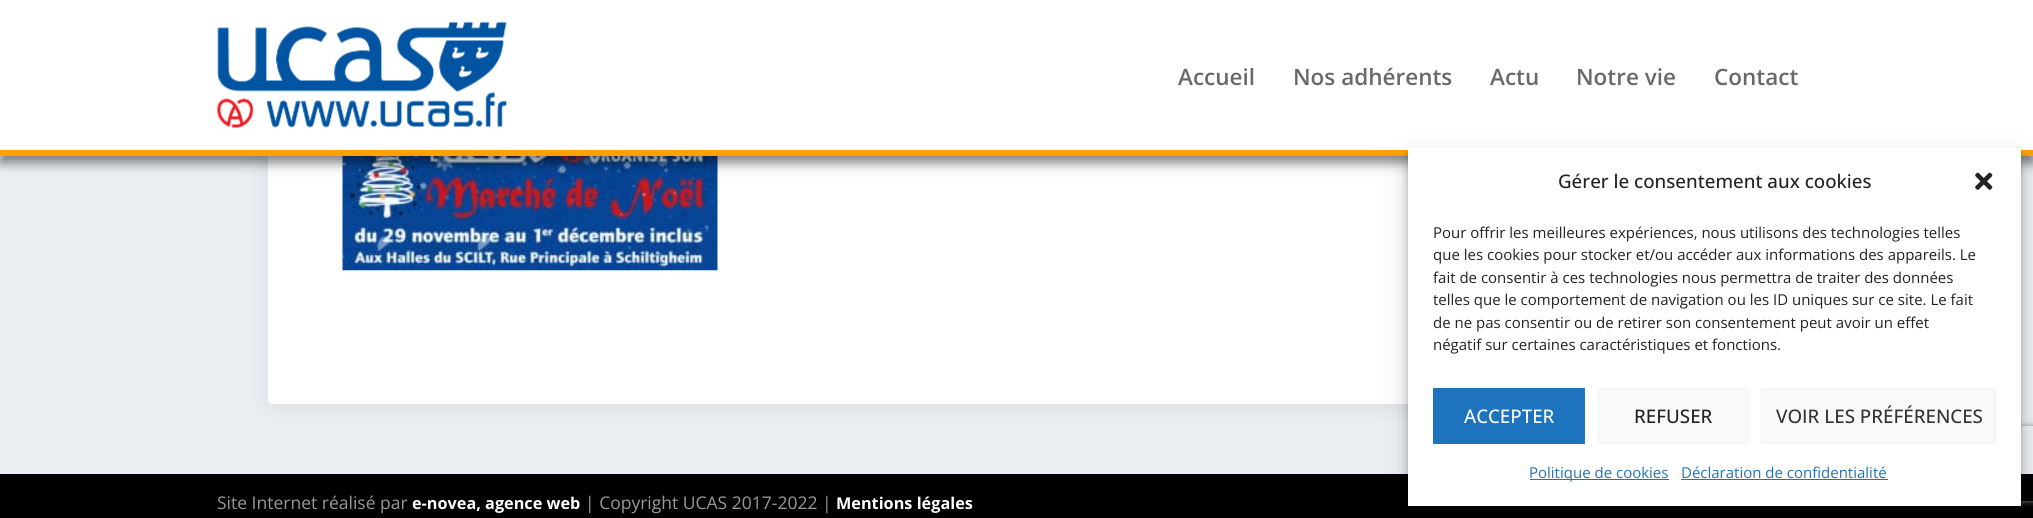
import math
import cairo


def use_color(cr, r, g, b):
  cr.set_source_rgb(r / 255, g / 255, b / 255)

def text(cr, x, y, s, family, size, color, bold=False, italic=False):
  cr.select_font_face(family, cairo.FONT_SLANT_ITALIC if italic else cairo.FONT_SLANT_NORMAL, cairo.FONT_WEIGHT_BOLD if bold else cairo.FONT_WEIGHT_NORMAL)
  cr.set_font_size(size)
  use_color(cr, *color)
  cr.move_to(x, y)
  cr.show_text(s)

def box(cr, x, y, w, h, *color):
  use_color(cr, *color)
  cr.rectangle(x, y, w, h)
  cr.fill()

def round_rect(cr, x, y, w, h, r):
  cr.new_sub_path()
  for i, (u, v) in enumerate([(x + w - r, y + h - r), (x + r, y + h - r), (x + r, y + r), (x + w - r, y + r)]):
    cr.arc(u, v, r, i * math.pi / 2, (i + 1) * math.pi / 2)
  cr.close_path()

def shadow(cr, x, y, w, h, r, blur, alpha):
  cr.push_group_with_content(cairo.CONTENT_ALPHA)
  cr.set_operator(cairo.OPERATOR_SOURCE)
  for i in range(15, -16, -2):
    e = blur * i / 6
    if min(w, h) + 2 * e > 0:
      cr.set_source_rgba(0, 0, 0, alpha * math.erfc((i - 1) / 8.5) / 2)
      round_rect(cr, x - e, y - e, w + 2 * e, h + 2 * e, max(0, min(r + e + blur * .6, min(w, h) / 2 + e)))
      cr.fill()
  cr.mask(cr.pop_group())

def picture(cr, path, x, y, w, h):
  cr.save()
  cr.set_source_surface(cairo.ImageSurface.create_from_png(path), x, y)
  cr.rectangle(x, y, w, h)
  cr.fill()
  cr.restore()

def draw(cr):
  use_color(cr, 236, 240, 245)
  cr.paint()
  use_color(cr, 0, 0, 0)
  shadow(cr, 268, 15, 1500, 390, 4, 12.5, 0.1)
  use_color(cr, 255, 255, 255)
  round_rect(cr, 268, 14, 1500, 390, 4)
  cr.fill()
  picture(cr, "img_01.png", 342, 156, 376, 115)
  use_color(cr, 0, 0, 0)
  shadow(cr, 0, 6, 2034, 157, 0, 6, 0.5)
  box(cr, 0, 0, 2033, 150, 255, 255, 255)
  box(cr, 0, 150, 2033, 6, 255, 160, 0)
  picture(cr, "img_02.png", 217, 22, 290, 106)
  box(cr, 0, 474, 2033, 44, 0, 0, 0)
  use_color(cr, 0, 0, 0)
  shadow(cr, 1408, 155, 613, 359, 0, 4, 0.23)
  shadow(cr, 1408, 160, 613, 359, 0, 12.5, 0.19)
  cr.save()
  cr.set_fill_rule(cairo.FILL_RULE_EVEN_ODD)
  cr.new_path()
  cr.move_to(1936, 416)
  cr.line_to(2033, 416)
  cr.line_to(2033, 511)
  cr.line_to(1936, 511)
  cr.close_path()
  cr.move_to(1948.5, 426)
  cr.line_to(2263.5, 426)
  cr.curve_to(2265, 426, 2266, 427, 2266, 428.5)
  cr.line_to(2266, 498.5)
  cr.curve_to(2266, 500, 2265, 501, 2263.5, 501)
  cr.line_to(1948.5, 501)
  cr.curve_to(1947, 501, 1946, 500, 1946, 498.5)
  cr.line_to(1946, 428.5)
  cr.curve_to(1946, 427, 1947, 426, 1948.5, 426)
  cr.close_path()
  cr.clip()
  use_color(cr, 128, 128, 128)
  shadow(cr, 1946, 426, 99, 75, 2.5, 3, 1)
  cr.restore()
  box(cr, 1408, 148, 613, 358, 255, 255, 255)
  picture(cr, "img_03.png", 1975, 172, 18, 18)
  box(cr, 1433, 388, 152, 56, 30, 115, 190)
  use_color(cr, 249, 249, 249)
  cr.rectangle(1598.5, 388.5, 150, 55)
  cr.fill_preserve()
  use_color(cr, 242, 242, 242)
  cr.set_line_width(1)
  cr.stroke()
  use_color(cr, 249, 249, 249)
  cr.rectangle(1761.5, 388.5, 234, 55)
  cr.fill_preserve()
  use_color(cr, 242, 242, 242)
  cr.stroke()
  box(cr, 1530, 479, 139, 1, 30, 115, 190)
  box(cr, 1681, 479, 207, 1, 30, 115, 190)
  text(cr, 1178, 85, "Accueil", "Open Sans SemiBold", 22.5, (105, 105, 105))
  text(cr, 1293, 85, "Nos adhérents", "Open Sans SemiBold", 22.5, (105, 105, 105))
  text(cr, 1490, 85, "Actu", "Open Sans SemiBold", 22.5, (105, 105, 105))
  text(cr, 1576, 85, "Notre vie", "Open Sans SemiBold", 22.5, (105, 105, 105))
  text(cr, 1714, 85, "Contact", "Open Sans SemiBold", 22.5, (105, 105, 105))
  text(cr, 217, 509, "Site Internet réalisé par", "Open Sans", 17.5, (153, 153, 153))
  text(cr, 412, 509, "e-novea, agence web", "Open Sans", 16.25, (255, 255, 255), bold=True)
  text(cr, 585, 509, "| Copyright UCAS 2017-2022 |", "Open Sans", 17.5, (153, 153, 153))
  text(cr, 836, 509, "Mentions légales", "Open Sans", 16.25, (255, 255, 255), bold=True)
  text(cr, 1558, 188, "Gérer le consentement aux cookies", "Open Sans Medium", 18.75, (34, 34, 34))
  text(cr, 1433, 238, "Pour offrir les meilleures expériences, nous utilisons des technologies telles", "Open Sans", 15, (34, 34, 34))
  text(cr, 1433, 260, "que les cookies pour stocker et/ou accéder aux informations des appareils. Le", "Open Sans", 15, (34, 34, 34))
  text(cr, 1433, 283, "fait de consentir à ces technologies nous permettra de traiter des données", "Open Sans", 15, (34, 34, 34))
  text(cr, 1433, 305, "telles que le comportement de navigation ou les ID uniques sur ce site. Le fait", "Open Sans", 15, (34, 34, 34))
  text(cr, 1433, 328, "de ne pas consentir ou de retirer son consentement peut avoir un effet", "Open Sans", 15, (34, 34, 34))
  text(cr, 1433, 350, "négatif sur certaines caractéristiques et fonctions.", "Open Sans", 15, (34, 34, 34))
  text(cr, 1464, 423, "ACCEPTER", "Open Sans Medium", 18.75, (255, 255, 255))
  text(cr, 1634, 423, "REFUSER", "Open Sans Medium", 18.75, (34, 34, 34))
  text(cr, 1776, 423, "VOIR LES PRÉFÉRENCES", "Open Sans Medium", 18.75, (51, 51, 51))
  text(cr, 1529, 478, "Politique de cookies", "Open Sans", 15, (30, 115, 190))
  text(cr, 1681, 478, "Déclaration de confidentialité", "Open Sans", 15, (30, 115, 190))


surface = cairo.ImageSurface(cairo.FORMAT_RGB24, 2033, 518)
cr = cairo.Context(surface)
options = cairo.FontOptions()
options.set_hint_metrics(cairo.HINT_METRICS_OFF)
options.set_hint_style(cairo.HINT_STYLE_NONE)
cr.set_font_options(options)
cr.set_miter_limit(4)
draw(cr)
surface.write_to_png("out.png")
